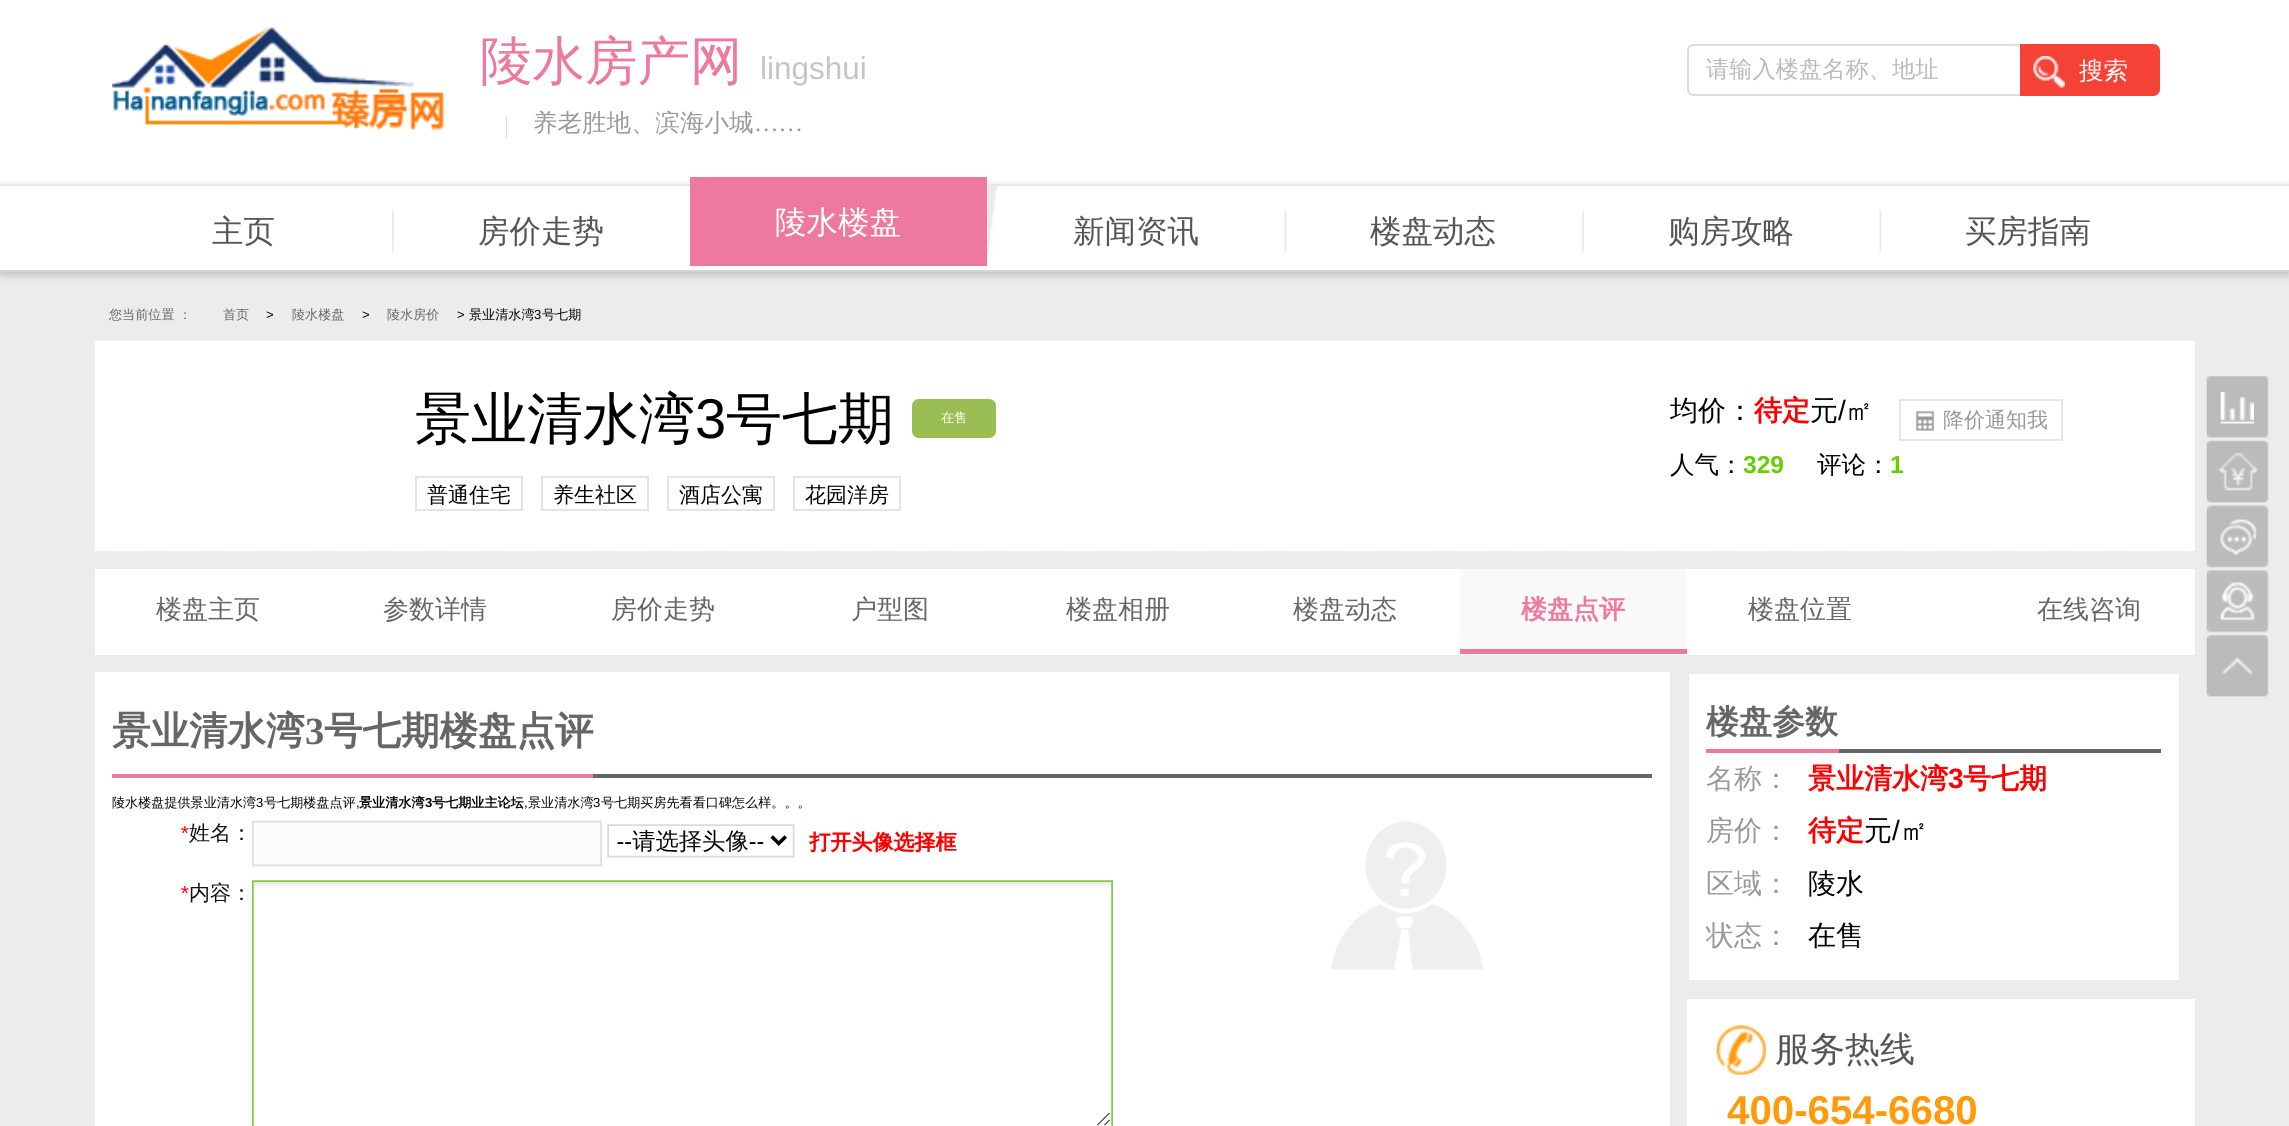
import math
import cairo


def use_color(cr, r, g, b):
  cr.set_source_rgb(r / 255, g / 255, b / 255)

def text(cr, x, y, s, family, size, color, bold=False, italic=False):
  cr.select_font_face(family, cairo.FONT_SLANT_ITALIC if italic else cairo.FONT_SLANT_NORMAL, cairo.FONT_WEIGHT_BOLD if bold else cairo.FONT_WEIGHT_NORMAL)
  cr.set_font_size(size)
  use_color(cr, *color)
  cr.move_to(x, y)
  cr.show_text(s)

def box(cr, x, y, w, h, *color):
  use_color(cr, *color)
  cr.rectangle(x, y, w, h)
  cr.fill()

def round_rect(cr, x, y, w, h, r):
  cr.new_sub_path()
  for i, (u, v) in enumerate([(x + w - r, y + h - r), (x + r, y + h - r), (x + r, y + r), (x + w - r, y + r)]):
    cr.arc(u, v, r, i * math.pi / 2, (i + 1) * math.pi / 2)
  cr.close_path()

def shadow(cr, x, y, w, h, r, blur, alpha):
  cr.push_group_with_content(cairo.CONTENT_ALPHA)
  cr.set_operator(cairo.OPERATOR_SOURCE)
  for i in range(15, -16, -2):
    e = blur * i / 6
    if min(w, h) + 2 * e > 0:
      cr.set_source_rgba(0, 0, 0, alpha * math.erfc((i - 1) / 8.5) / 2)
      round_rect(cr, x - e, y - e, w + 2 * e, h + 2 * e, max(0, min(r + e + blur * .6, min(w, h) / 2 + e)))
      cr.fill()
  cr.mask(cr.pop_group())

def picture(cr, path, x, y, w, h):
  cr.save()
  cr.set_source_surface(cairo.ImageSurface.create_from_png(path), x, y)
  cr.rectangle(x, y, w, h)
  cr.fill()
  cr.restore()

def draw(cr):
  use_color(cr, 236, 236, 236)
  cr.paint()
  box(cr, 0, 0, 2289, 184, 255, 255, 255)
  picture(cr, "img_01.png", 112, 26, 332, 104)
  use_color(cr, 221, 221, 221)
  cr.set_fill_rule(cairo.FILL_RULE_EVEN_ODD)
  cr.new_path()
  cr.move_to(1694, 44)
  cr.line_to(2020, 44)
  cr.line_to(2020, 96)
  cr.line_to(1694, 96)
  cr.curve_to(1690, 96, 1687, 93, 1687, 89)
  cr.line_to(1687, 51)
  cr.curve_to(1687, 47, 1690, 44, 1694, 44)
  cr.close_path()
  cr.move_to(1694, 46)
  cr.line_to(2020, 46)
  cr.line_to(2020, 94)
  cr.line_to(1694, 94)
  cr.curve_to(1691, 94, 1689, 92, 1689, 89)
  cr.line_to(1689, 51)
  cr.curve_to(1689, 48, 1691, 46, 1694, 46)
  cr.close_path()
  cr.fill()
  use_color(cr, 244, 67, 54)
  cr.new_path()
  cr.move_to(2020, 44)
  cr.line_to(2153, 44)
  cr.curve_to(2157, 44, 2160, 47, 2160, 51)
  cr.line_to(2160, 89)
  cr.curve_to(2160, 93, 2157, 96, 2153, 96)
  cr.line_to(2020, 96)
  cr.close_path()
  cr.fill()
  picture(cr, "img_02.png", 2033, 56, 32, 32)
  use_color(cr, 0, 0, 0)
  shadow(cr, 0, 187, 2289, 88, 0, 5, 0.2)
  box(cr, 0, 186, 2289, 84, 255, 255, 255)
  box(cr, 0, 184, 2289, 2, 231, 231, 231)
  box(cr, 0, 270, 2289, 2, 212, 212, 212)
  picture(cr, "img_03.png", 392, 208, 2, 46)
  box(cr, 690, 177, 297, 89, 238, 121, 159)
  picture(cr, "img_04.png", 987, 186, 11, 71)
  picture(cr, "img_05.png", 1284, 208, 3, 46)
  picture(cr, "img_03.png", 1582, 208, 2, 46)
  picture(cr, "img_05.png", 1879, 208, 3, 46)
  box(cr, 95, 341, 2100, 210, 255, 255, 255)
  cr.new_path()
  cr.move_to(94.5, 549.5)
  cr.line_to(2194.5, 549.5)
  cr.set_line_width(3.5)
  cr.set_dash([3.5, 3.5])
  cr.stroke()
  use_color(cr, 154, 190, 84)
  round_rect(cr, 912, 399, 84, 39, 7)
  cr.fill()
  cr.rectangle(416, 477, 106, 33)
  use_color(cr, 228, 228, 228)
  cr.set_line_width(2)
  cr.set_dash([])
  cr.stroke()
  cr.rectangle(542, 477, 106, 33)
  cr.stroke()
  cr.rectangle(668, 477, 106, 33)
  cr.stroke()
  cr.rectangle(794, 477, 106, 33)
  cr.stroke()
  cr.rectangle(1900, 400, 162, 40)
  use_color(cr, 231, 231, 231)
  cr.stroke()
  picture(cr, "img_06.png", 1915, 410, 20, 21)
  box(cr, 95, 569, 2100, 86, 255, 255, 255)
  box(cr, 1460, 569, 227, 86, 249, 249, 249)
  box(cr, 1460, 649, 227, 5, 238, 121, 159)
  box(cr, 95, 672, 1575, 454, 255, 255, 255)
  box(cr, 593, 774, 1059, 4, 102, 102, 102)
  box(cr, 112, 774, 481, 4, 238, 121, 159)
  picture(cr, "img_07.png", 181, 820, 1302, 306)
  box(cr, 1689, 674, 490, 306, 255, 255, 255)
  box(cr, 1839, 749, 322, 4, 102, 102, 102)
  box(cr, 1706, 749, 133, 4, 238, 121, 159)
  box(cr, 1687, 999, 508, 127, 255, 255, 255)
  picture(cr, "img_08.png", 1716, 1025, 50, 50)
  picture(cr, "img_09.png", 2206, 376, 63, 62)
  picture(cr, "img_10.png", 2220, 392, 34, 32)
  picture(cr, "img_11.png", 2206, 440, 63, 63)
  picture(cr, "img_12.png", 2206, 505, 63, 63)
  picture(cr, "img_13.png", 2206, 570, 63, 63)
  picture(cr, "img_14.png", 2206, 635, 63, 62)
  text(cr, 480, 79, "陵水房产网", "WenQuanYi Zen Hei Medium", 52.5, (238, 121, 159))
  text(cr, 760, 79, "lingshui", "Liberation Sans", 31.5, (197, 197, 197))
  text(cr, 504, 133, "|", "Liberation Serif", 24.5, (221, 221, 221))
  text(cr, 533, 131, "养老胜地、滨海小城", "WenQuanYi Zen Hei Medium", 24.5, (153, 153, 153))
  text(cr, 754, 131, "……", "Liberation Serif", 24.5, (153, 153, 153))
  text(cr, 1706, 77, "请输入楼盘名称、地址", "WenQuanYi Zen Hei Medium", 23.25, (186, 186, 186))
  text(cr, 2079, 79, "搜索", "WenQuanYi Zen Hei Medium", 24.5, (255, 255, 255))
  text(cr, 212, 242, "主页", "WenQuanYi Zen Hei Medium", 31.5, (85, 85, 85))
  text(cr, 478, 242, "房价走势", "WenQuanYi Zen Hei Medium", 31.5, (85, 85, 85))
  text(cr, 775, 233, "陵水楼盘", "WenQuanYi Zen Hei Medium", 31.5, (255, 255, 255))
  text(cr, 1073, 242, "新闻资讯", "WenQuanYi Zen Hei Medium", 31.5, (85, 85, 85))
  text(cr, 1370, 242, "楼盘动态", "WenQuanYi Zen Hei Medium", 31.5, (85, 85, 85))
  text(cr, 1668, 242, "购房攻略", "WenQuanYi Zen Hei Medium", 31.5, (85, 85, 85))
  text(cr, 1965, 242, "买房指南", "WenQuanYi Zen Hei Medium", 31.5, (85, 85, 85))
  text(cr, 109, 319, "您当前位置 ：", "WenQuanYi Zen Hei Medium", 13.1, (102, 102, 102))
  text(cr, 223, 319, "首页", "WenQuanYi Zen Hei Medium", 13.1, (102, 102, 102))
  text(cr, 266, 319, ">", "Liberation Sans", 13.1, (0, 0, 0))
  text(cr, 292, 319, "陵水楼盘", "WenQuanYi Zen Hei Medium", 13.1, (102, 102, 102))
  text(cr, 362, 319, ">", "Liberation Sans", 13.1, (0, 0, 0))
  text(cr, 387, 319, "陵水房价", "WenQuanYi Zen Hei Medium", 13.1, (102, 102, 102))
  text(cr, 457, 319, ">", "Liberation Sans", 13.1, (0, 0, 0))
  text(cr, 469, 319, "景业清水湾", "WenQuanYi Zen Hei Medium", 13.1, (0, 0, 0))
  text(cr, 534, 319, "3", "Liberation Sans", 13.1, (0, 0, 0))
  text(cr, 542, 319, "号七期", "WenQuanYi Zen Hei Medium", 13.1, (0, 0, 0))
  text(cr, 415, 438, "景业清水湾", "WenQuanYi Zen Hei Medium", 56, (0, 0, 0))
  text(cr, 695, 438, "3", "Liberation Sans", 56, (0, 0, 0))
  text(cr, 726, 438, "号七期", "WenQuanYi Zen Hei Medium", 56, (0, 0, 0))
  text(cr, 941, 422, "在售", "WenQuanYi Zen Hei Medium", 13.1, (255, 255, 255))
  text(cr, 427, 502, "普通住宅", "WenQuanYi Zen Hei Medium", 21, (0, 0, 0))
  text(cr, 553, 502, "养生社区", "WenQuanYi Zen Hei Medium", 21, (0, 0, 0))
  text(cr, 679, 502, "酒店公寓", "WenQuanYi Zen Hei Medium", 21, (0, 0, 0))
  text(cr, 805, 502, "花园洋房", "WenQuanYi Zen Hei Medium", 21, (0, 0, 0))
  text(cr, 1670, 420, "均价：", "WenQuanYi Zen Hei Medium", 28, (0, 0, 0))
  text(cr, 1754, 420, "待定", "WenQuanYi Zen Hei", 28, (255, 0, 0), bold=True)
  text(cr, 1810, 420, "元", "WenQuanYi Zen Hei Medium", 28, (0, 0, 0))
  text(cr, 1838, 420, "/", "Liberation Sans", 28, (0, 0, 0))
  text(cr, 1845, 420, "㎡", "WenQuanYi Zen Hei Medium", 28, (0, 0, 0))
  text(cr, 1943, 427, "降价通知我", "WenQuanYi Zen Hei Medium", 21, (153, 153, 153))
  text(cr, 1670, 473, "人气：", "WenQuanYi Zen Hei Medium", 24.5, (0, 0, 0))
  text(cr, 1743, 473, "329", "Liberation Sans", 24.5, (102, 205, 0), bold=True)
  text(cr, 1817, 473, "评论：", "WenQuanYi Zen Hei Medium", 24.5, (0, 0, 0))
  text(cr, 1890, 473, "1", "Liberation Sans", 24.5, (102, 205, 0), bold=True)
  text(cr, 156, 618, "楼盘主页", "WenQuanYi Zen Hei Medium", 26, (102, 102, 102))
  text(cr, 383, 618, "参数详情", "WenQuanYi Zen Hei Medium", 26, (102, 102, 102))
  text(cr, 611, 618, "房价走势", "WenQuanYi Zen Hei Medium", 26, (102, 102, 102))
  text(cr, 851, 618, "户型图", "WenQuanYi Zen Hei Medium", 26, (102, 102, 102))
  text(cr, 1066, 618, "楼盘相册", "WenQuanYi Zen Hei Medium", 26, (102, 102, 102))
  text(cr, 1293, 618, "楼盘动态", "WenQuanYi Zen Hei Medium", 26, (102, 102, 102))
  text(cr, 1521, 618, "楼盘点评", "WenQuanYi Zen Hei", 26, (238, 121, 159), bold=True)
  text(cr, 1748, 618, "楼盘位置", "WenQuanYi Zen Hei Medium", 26, (102, 102, 102))
  text(cr, 2037, 618, "在线咨询", "WenQuanYi Zen Hei Medium", 26, (102, 102, 102))
  text(cr, 112, 744, "景业清水湾", "WenQuanYi Zen Hei", 38.5, (102, 102, 102), bold=True)
  text(cr, 305, 744, "3", "Liberation Serif", 38.5, (102, 102, 102), bold=True)
  text(cr, 324, 744, "号七期楼盘点评", "WenQuanYi Zen Hei", 38.5, (102, 102, 102), bold=True)
  text(cr, 112, 807, "陵水楼盘提供景业清水湾", "WenQuanYi Zen Hei Medium", 13.1, (0, 0, 0))
  text(cr, 256, 807, "3", "Liberation Sans", 13.1, (0, 0, 0))
  text(cr, 264, 807, "号七期楼盘点评", "WenQuanYi Zen Hei Medium", 13.1, (0, 0, 0))
  text(cr, 356, 807, ",", "Liberation Sans", 13.1, (0, 0, 0))
  text(cr, 359, 807, "景业清水湾", "WenQuanYi Zen Hei", 13.1, (0, 0, 0), bold=True)
  text(cr, 425, 807, "3", "Liberation Sans", 13.1, (0, 0, 0), bold=True)
  text(cr, 432, 807, "号七期业主论坛", "WenQuanYi Zen Hei", 13.1, (0, 0, 0), bold=True)
  text(cr, 524, 807, ",", "Liberation Sans", 13.1, (0, 0, 0))
  text(cr, 528, 807, "景业清水湾", "WenQuanYi Zen Hei Medium", 13.1, (0, 0, 0))
  text(cr, 593, 807, "3", "Liberation Sans", 13.1, (0, 0, 0))
  text(cr, 601, 807, "号七期买房先看看口碑怎么样。。。", "WenQuanYi Zen Hei Medium", 13.1, (0, 0, 0))
  text(cr, 1706, 733, "楼盘参数", "WenQuanYi Zen Hei", 33, (102, 102, 102), bold=True)
  text(cr, 1706, 788, "名称：", "WenQuanYi Zen Hei Medium", 28, (153, 153, 153))
  text(cr, 1808, 788, "景业清水湾", "WenQuanYi Zen Hei", 28, (255, 0, 0), bold=True)
  text(cr, 1948, 788, "3", "Liberation Sans", 28, (255, 0, 0), bold=True)
  text(cr, 1963, 788, "号七期", "WenQuanYi Zen Hei", 28, (255, 0, 0), bold=True)
  text(cr, 1706, 840, "房价：", "WenQuanYi Zen Hei Medium", 28, (153, 153, 153))
  text(cr, 1808, 840, "待定", "WenQuanYi Zen Hei", 28, (255, 0, 0), bold=True)
  text(cr, 1864, 840, "元", "WenQuanYi Zen Hei Medium", 28, (0, 0, 0))
  text(cr, 1892, 840, "/", "Liberation Sans", 28, (0, 0, 0))
  text(cr, 1900, 840, "㎡", "WenQuanYi Zen Hei Medium", 28, (0, 0, 0))
  text(cr, 1706, 893, "区域：", "WenQuanYi Zen Hei Medium", 28, (153, 153, 153))
  text(cr, 1808, 893, "陵水", "WenQuanYi Zen Hei Medium", 28, (0, 0, 0))
  text(cr, 1706, 945, "状态：", "WenQuanYi Zen Hei Medium", 28, (153, 153, 153))
  text(cr, 1808, 945, "在售", "WenQuanYi Zen Hei Medium", 28, (0, 0, 0))
  text(cr, 1775, 1061, "服务热线", "WenQuanYi Zen Hei Medium", 35, (85, 85, 85))
  text(cr, 1727, 1124, "400-654-6680", "Liberation Sans", 40.25, (255, 154, 13), bold=True)


surface = cairo.ImageSurface(cairo.FORMAT_RGB24, 2289, 1126)
cr = cairo.Context(surface)
options = cairo.FontOptions()
options.set_hint_metrics(cairo.HINT_METRICS_OFF)
options.set_hint_style(cairo.HINT_STYLE_NONE)
cr.set_font_options(options)
cr.set_miter_limit(4)
draw(cr)
surface.write_to_png("out.png")
